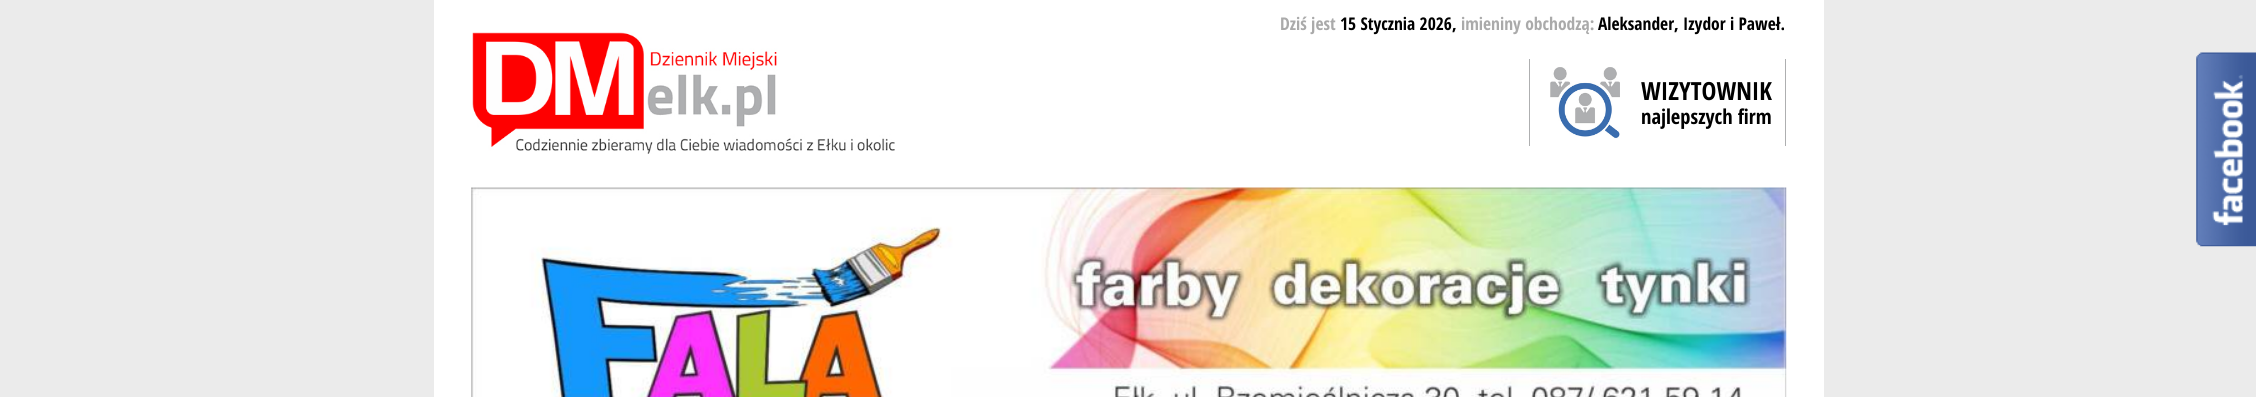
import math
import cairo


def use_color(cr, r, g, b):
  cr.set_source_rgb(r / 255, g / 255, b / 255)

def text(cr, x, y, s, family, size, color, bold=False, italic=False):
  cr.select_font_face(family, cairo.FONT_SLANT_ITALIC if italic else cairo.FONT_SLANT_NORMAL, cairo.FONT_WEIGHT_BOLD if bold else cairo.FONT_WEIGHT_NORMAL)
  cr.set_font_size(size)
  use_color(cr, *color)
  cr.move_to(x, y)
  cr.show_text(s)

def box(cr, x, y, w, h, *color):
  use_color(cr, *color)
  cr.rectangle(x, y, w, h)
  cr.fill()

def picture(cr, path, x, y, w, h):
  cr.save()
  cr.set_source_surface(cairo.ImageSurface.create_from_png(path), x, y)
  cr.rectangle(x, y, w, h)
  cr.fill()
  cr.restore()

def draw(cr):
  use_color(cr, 235, 235, 235)
  cr.paint()
  box(cr, 434, 0, 1390, 397, 255, 255, 255)
  picture(cr, "img_01.png", 472, 32, 423, 122)
  box(cr, 1785, 59, 1, 87, 174, 175, 176)
  box(cr, 1529, 59, 1, 87, 174, 175, 176)
  picture(cr, "img_02.png", 1550, 67, 70, 72)
  picture(cr, "img_03.png", 2196, 52, 60, 195)
  picture(cr, "img_04.png", 471, 187, 1316, 210)
  text(cr, 1280, 30, "Dziś jest", "Open Sans Condensed", 17.5, (170, 170, 170), bold=True)
  text(cr, 1340, 30, "15 Stycznia 2026,", "Open Sans Condensed", 17.5, (0, 0, 0), bold=True)
  text(cr, 1461, 30, "imieniny obchodzą:", "Open Sans Condensed", 17.5, (170, 170, 170), bold=True)
  text(cr, 1598, 30, "Aleksander, Izydor i Paweł.", "Open Sans Condensed", 17.5, (0, 0, 0), bold=True)
  text(cr, 1641, 100, "WIZYTOWNIK", "Open Sans Condensed", 25, (0, 0, 0), bold=True)
  text(cr, 1641, 124, "najlepszych firm", "Open Sans Condensed", 20.5, (0, 0, 0), bold=True)


surface = cairo.ImageSurface(cairo.FORMAT_RGB24, 2256, 397)
cr = cairo.Context(surface)
options = cairo.FontOptions()
options.set_hint_metrics(cairo.HINT_METRICS_OFF)
options.set_hint_style(cairo.HINT_STYLE_NONE)
cr.set_font_options(options)
cr.set_miter_limit(4)
draw(cr)
surface.write_to_png("out.png")
